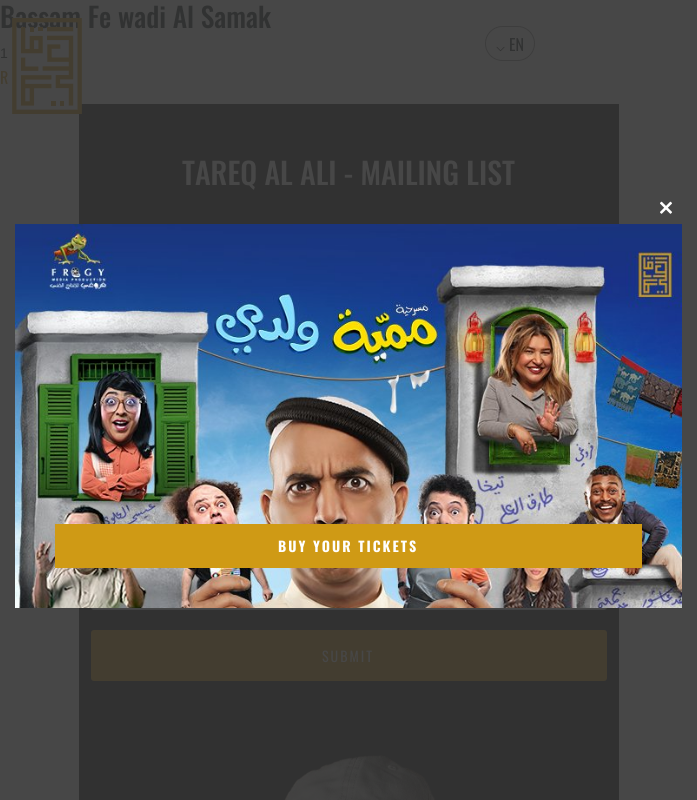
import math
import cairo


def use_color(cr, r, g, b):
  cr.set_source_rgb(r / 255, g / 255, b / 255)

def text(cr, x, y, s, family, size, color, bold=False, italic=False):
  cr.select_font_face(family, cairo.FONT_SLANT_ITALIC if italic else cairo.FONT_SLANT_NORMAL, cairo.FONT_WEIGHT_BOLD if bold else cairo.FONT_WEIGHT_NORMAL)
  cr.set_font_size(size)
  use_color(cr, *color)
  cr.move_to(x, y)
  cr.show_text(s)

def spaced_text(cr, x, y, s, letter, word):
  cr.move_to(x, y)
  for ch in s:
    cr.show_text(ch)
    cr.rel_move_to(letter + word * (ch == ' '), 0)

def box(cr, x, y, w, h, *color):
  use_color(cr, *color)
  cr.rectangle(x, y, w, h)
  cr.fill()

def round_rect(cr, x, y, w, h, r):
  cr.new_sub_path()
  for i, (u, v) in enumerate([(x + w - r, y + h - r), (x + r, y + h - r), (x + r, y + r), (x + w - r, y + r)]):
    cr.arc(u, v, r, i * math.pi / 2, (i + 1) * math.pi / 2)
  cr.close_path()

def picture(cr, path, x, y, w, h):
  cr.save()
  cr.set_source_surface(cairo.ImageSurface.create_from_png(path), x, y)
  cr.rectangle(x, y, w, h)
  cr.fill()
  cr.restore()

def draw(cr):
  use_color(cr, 71, 71, 71)
  cr.paint()
  picture(cr, "img_02.png", 496, 46, 9, 6)
  round_rect(cr, 485.5, 26.5, 49, 34, 17)
  use_color(cr, 61, 61, 61)
  cr.set_line_width(1)
  cr.stroke()
  box(cr, 79, 104, 540, 696, 49, 49, 49)
  use_color(cr, 71, 71, 71)
  round_rect(cr, 91.5, 555.5, 515, 54, 2.5)
  cr.fill_preserve()
  use_color(cr, 67, 67, 68)
  cr.stroke()
  use_color(cr, 67, 61, 48)
  round_rect(cr, 91, 630, 516, 51, 3)
  cr.fill()
  picture(cr, "img_03.png", 284, 755, 151, 45)
  picture(cr, "img_04.png", 15, 224, 667, 384)
  picture(cr, "img_05.png", 660, 201, 12, 13)
  box(cr, 55, 524, 587, 44, 207, 154, 21)
  text(cr, 0, 28, "Bassam Fe wadi Al Samak", "Oswald Medium", 27.5, (49, 50, 50))
  text(cr, 0, 58, "1", "Liberation Sans", 14, (49, 50, 50))
  text(cr, 0, 84, "R", "Oswald", 16, (67, 61, 48))
  picture(cr, "img_01.png", 12, 18, 70, 96)
  text(cr, 509, 51, "EN", "Oswald", 16, (49, 50, 50))
  text(cr, 182, 185, "TAREQ AL ALI - MAILING LIST", "Oswald Medium", 30, (71, 71, 71))
  cr.select_font_face("Oswald")
  cr.set_font_size(14)
  spaced_text(cr, 322, 662, "SUBMIT", 2, 0)
  cr.select_font_face("Oswald", cairo.FONT_SLANT_NORMAL, cairo.FONT_WEIGHT_BOLD)
  use_color(cr, 255, 255, 255)
  spaced_text(cr, 278, 552, "BUY YOUR TICKETS", 2, 0)


surface = cairo.ImageSurface(cairo.FORMAT_RGB24, 697, 800)
cr = cairo.Context(surface)
options = cairo.FontOptions()
options.set_hint_metrics(cairo.HINT_METRICS_OFF)
options.set_hint_style(cairo.HINT_STYLE_NONE)
cr.set_font_options(options)
cr.set_miter_limit(4)
draw(cr)
surface.write_to_png("out.png")
